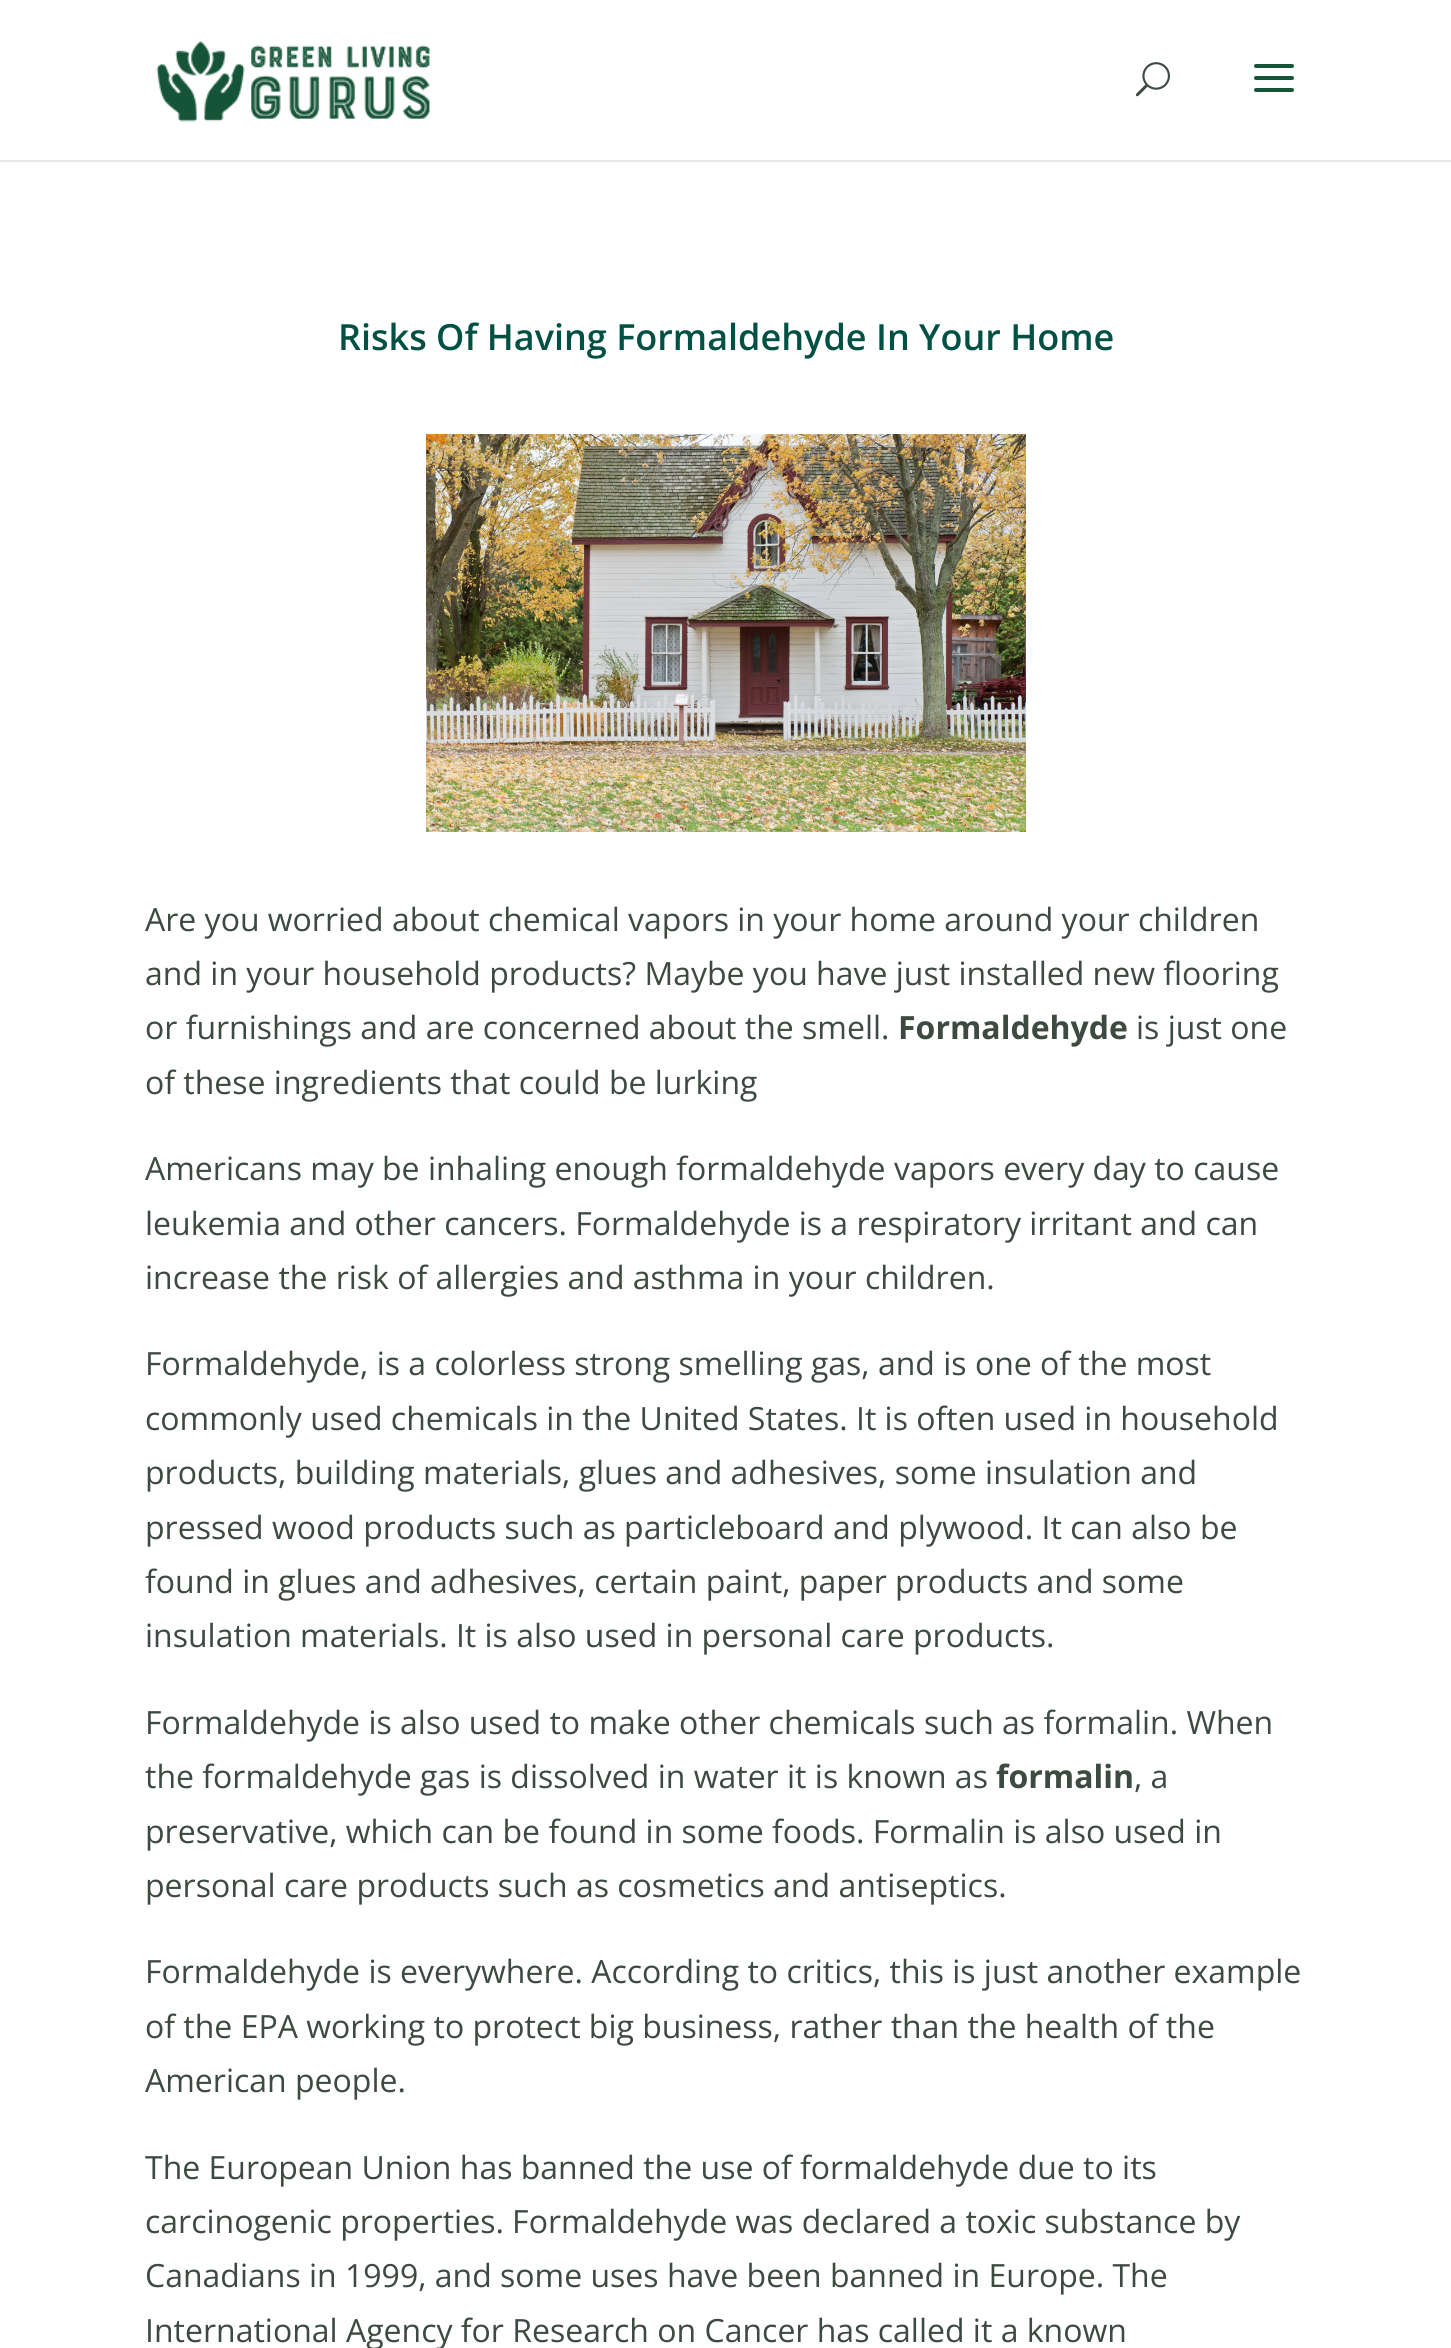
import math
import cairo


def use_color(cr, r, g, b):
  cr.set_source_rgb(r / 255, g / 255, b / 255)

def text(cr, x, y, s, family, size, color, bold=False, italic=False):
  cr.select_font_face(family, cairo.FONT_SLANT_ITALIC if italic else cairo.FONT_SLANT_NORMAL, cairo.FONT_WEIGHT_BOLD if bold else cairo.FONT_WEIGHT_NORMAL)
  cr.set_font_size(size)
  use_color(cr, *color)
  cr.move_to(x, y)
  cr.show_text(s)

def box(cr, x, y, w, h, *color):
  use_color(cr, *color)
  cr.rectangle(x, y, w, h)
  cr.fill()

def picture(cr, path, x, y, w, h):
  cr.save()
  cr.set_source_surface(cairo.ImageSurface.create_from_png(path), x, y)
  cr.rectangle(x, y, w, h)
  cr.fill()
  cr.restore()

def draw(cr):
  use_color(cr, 255, 255, 255)
  cr.paint()
  box(cr, 0, 160, 1451, 2, 230, 230, 230)
  picture(cr, "img_01.png", 156, 41, 274, 81)
  picture(cr, "img_02.png", 1135, 62, 35, 35)
  picture(cr, "img_03.png", 1254, 64, 40, 28)
  picture(cr, "img_04.png", 426, 434, 600, 398)
  text(cr, 338, 350, "Risks Of Having Formaldehyde In Your Home", "Open Sans SemiBold", 36, (0, 80, 67))
  text(cr, 145, 931, "Are you worried about chemical vapors in your home around your children", "Open Sans", 32, (61, 74, 65))
  text(cr, 145, 985, "and in your household products? Maybe you have just installed new flooring", "Open Sans", 32, (61, 74, 65))
  text(cr, 145, 1039, "or furnishings and are concerned about the smell.", "Open Sans", 32, (61, 74, 65))
  text(cr, 898, 1039, "Formaldehyde", "Open Sans", 32, (61, 74, 65), bold=True)
  text(cr, 1136, 1039, "is just one", "Open Sans", 32, (61, 74, 65))
  text(cr, 145, 1094, "of these ingredients that could be lurking", "Open Sans", 32, (61, 74, 65))
  text(cr, 145, 1180, "Americans may be inhaling enough formaldehyde vapors every day to cause", "Open Sans", 32, (61, 74, 65))
  text(cr, 145, 1235, "leukemia and other cancers. Formaldehyde is a respiratory irritant and can", "Open Sans", 32, (61, 74, 65))
  text(cr, 145, 1289, "increase the risk of allergies and asthma in your children.", "Open Sans", 32, (61, 74, 65))
  text(cr, 145, 1375, "Formaldehyde, is a colorless strong smelling gas, and is one of the most", "Open Sans", 32, (61, 74, 65))
  text(cr, 145, 1430, "commonly used chemicals in the United States. It is often used in household", "Open Sans", 32, (61, 74, 65))
  text(cr, 145, 1484, "products, building materials, glues and adhesives, some insulation and", "Open Sans", 32, (61, 74, 65))
  text(cr, 145, 1539, "pressed wood products such as particleboard and plywood. It can also be", "Open Sans", 32, (61, 74, 65))
  text(cr, 145, 1593, "found in glues and adhesives, certain paint, paper products and some", "Open Sans", 32, (61, 74, 65))
  text(cr, 145, 1647, "insulation materials. It is also used in personal care products.", "Open Sans", 32, (61, 74, 65))
  text(cr, 145, 1734, "Formaldehyde is also used to make other chemicals such as formalin. When", "Open Sans", 32, (61, 74, 65))
  text(cr, 145, 1788, "the formaldehyde gas is dissolved in water it is known as", "Open Sans", 32, (61, 74, 65))
  text(cr, 996, 1788, "formalin", "Open Sans", 32, (61, 74, 65), bold=True)
  text(cr, 1134, 1788, ", a", "Open Sans", 32, (61, 74, 65))
  text(cr, 145, 1843, "preservative, which can be found in some foods. Formalin is also used in", "Open Sans", 32, (61, 74, 65))
  text(cr, 145, 1897, "personal care products such as cosmetics and antiseptics.", "Open Sans", 32, (61, 74, 65))
  text(cr, 145, 1983, "Formaldehyde is everywhere. According to critics, this is just another example", "Open Sans", 32, (61, 74, 65))
  text(cr, 145, 2038, "of the EPA working to protect big business, rather than the health of the", "Open Sans", 32, (61, 74, 65))
  text(cr, 145, 2092, "American people.", "Open Sans", 32, (61, 74, 65))
  text(cr, 145, 2179, "The European Union has banned the use of formaldehyde due to its", "Open Sans", 32, (61, 74, 65))
  text(cr, 145, 2233, "carcinogenic properties. Formaldehyde was declared a toxic substance by", "Open Sans", 32, (61, 74, 65))
  text(cr, 145, 2287, "Canadians in 1999, and some uses have been banned in Europe. The", "Open Sans", 32, (61, 74, 65))
  text(cr, 145, 2342, "International Agency for Research on Cancer has called it a known", "Open Sans", 32, (61, 74, 65))


surface = cairo.ImageSurface(cairo.FORMAT_RGB24, 1451, 2348)
cr = cairo.Context(surface)
options = cairo.FontOptions()
options.set_hint_metrics(cairo.HINT_METRICS_OFF)
options.set_hint_style(cairo.HINT_STYLE_NONE)
cr.set_font_options(options)
cr.set_miter_limit(4)
draw(cr)
surface.write_to_png("out.png")
